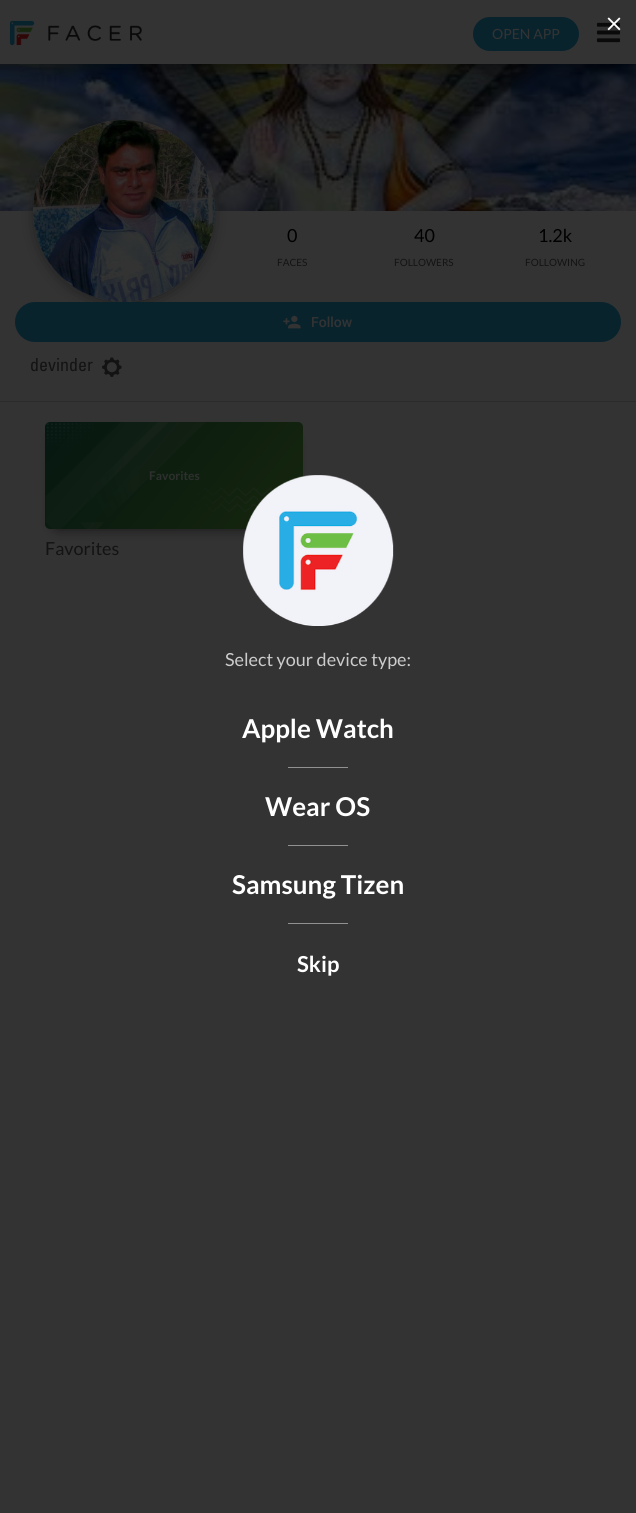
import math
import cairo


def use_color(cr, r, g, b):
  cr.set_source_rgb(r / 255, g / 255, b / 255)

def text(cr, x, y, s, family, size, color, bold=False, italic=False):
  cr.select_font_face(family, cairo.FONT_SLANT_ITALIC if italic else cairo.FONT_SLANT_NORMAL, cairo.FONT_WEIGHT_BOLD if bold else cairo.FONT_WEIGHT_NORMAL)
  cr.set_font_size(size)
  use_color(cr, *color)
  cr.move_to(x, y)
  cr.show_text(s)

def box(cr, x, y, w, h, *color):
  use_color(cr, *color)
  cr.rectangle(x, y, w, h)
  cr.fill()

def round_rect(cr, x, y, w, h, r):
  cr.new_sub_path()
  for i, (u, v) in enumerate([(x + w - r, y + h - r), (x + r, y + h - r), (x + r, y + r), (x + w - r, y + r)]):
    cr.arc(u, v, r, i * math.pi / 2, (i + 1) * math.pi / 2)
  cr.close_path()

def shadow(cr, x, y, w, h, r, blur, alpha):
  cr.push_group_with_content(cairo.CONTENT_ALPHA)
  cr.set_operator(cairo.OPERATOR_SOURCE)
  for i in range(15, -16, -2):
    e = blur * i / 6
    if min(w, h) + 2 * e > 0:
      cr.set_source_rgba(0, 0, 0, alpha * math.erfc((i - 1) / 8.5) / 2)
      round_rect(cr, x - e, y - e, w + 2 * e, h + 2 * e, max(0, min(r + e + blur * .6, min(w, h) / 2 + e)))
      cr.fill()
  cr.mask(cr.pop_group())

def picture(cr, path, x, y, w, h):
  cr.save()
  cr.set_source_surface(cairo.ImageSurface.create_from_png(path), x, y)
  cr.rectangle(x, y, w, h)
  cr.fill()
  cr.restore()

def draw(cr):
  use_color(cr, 51, 51, 51)
  cr.paint()
  picture(cr, "img_03.png", 0, 64, 636, 147)
  use_color(cr, 0, 0, 0)
  shadow(cr, -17, -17, 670, 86, 0, 5.5, 0.28)
  box(cr, 0, 0, 636, 64, 51, 51, 51)
  picture(cr, "img_01.png", 9, 20, 133, 26)
  use_color(cr, 9, 35, 45)
  round_rect(cr, 473, 17, 106, 34, 17)
  cr.fill()
  picture(cr, "img_02.png", 596, 22, 25, 21)
  box(cr, 0, 401, 636, 1, 43, 43, 43)
  use_color(cr, 0, 0, 0)
  shadow(cr, 43, 133, 162, 162, 81, 10, 1)
  use_color(cr, 51, 51, 51)
  cr.arc(124, 211, 91, 0, 2 * math.pi)
  cr.fill()
  picture(cr, "img_04.png", 33, 120, 182, 182)
  use_color(cr, 9, 35, 45)
  round_rect(cr, 15, 302, 606, 40, 20)
  cr.fill()
  picture(cr, "img_05.png", 283, 315, 18, 14)
  picture(cr, "img_06.png", 102, 357, 20, 20)
  use_color(cr, 0, 0, 0)
  shadow(cr, 57, 442, 234, 83, 0, 7.5, 1)
  gradient = cairo.LinearGradient(72, 390, 276, 561)
  gradient.add_color_stop_rgba(0, 0.02, 0.09, 0.067, 1)
  gradient.add_color_stop_rgba(1, 0.086, 0.149, 0.051, 1)
  cr.set_source(gradient)
  round_rect(cr, 45, 422, 258, 107, 5)
  cr.fill()
  picture(cr, "img_07.png", 45, 422, 229, 107)
  picture(cr, "img_08.png", 607, 17, 14, 14)
  picture(cr, "img_09.png", 243, 475, 151, 151)
  box(cr, 288, 767, 60, 1, 145, 145, 145)
  box(cr, 288, 845, 60, 1, 145, 145, 145)
  box(cr, 288, 923, 60, 1, 145, 145, 145)
  text(cr, 492, 39, "OPEN APP", "Lato", 14, (51, 51, 51))
  text(cr, 287, 242, "0", "Lato", 18, (0, 0, 0))
  text(cr, 277, 266, "FACES", "Lato", 10, (19, 19, 19))
  text(cr, 414, 242, "40", "Lato", 18, (0, 0, 0))
  text(cr, 394, 266, "FOLLOWERS", "Lato", 10, (19, 19, 19))
  text(cr, 538, 242, "1.2k", "Lato", 18, (0, 0, 0))
  text(cr, 525, 266, "FOLLOWING", "Lato", 10, (19, 19, 19))
  text(cr, 311, 327, "Follow", "Roboto Medium", 14, (51, 51, 51))
  text(cr, 30, 371, "devinder", "Univers", 18, (19, 19, 19))
  text(cr, 149, 480, "Favorites", "Lato", 12, (45, 48, 46), bold=True)
  text(cr, 45, 555, "Favorites", "Lato", 18, (19, 19, 19))
  text(cr, 225, 666, "Select your device type:", "Lato", 18, (204, 204, 204))
  text(cr, 242, 738, "Apple Watch", "Lato", 26, (255, 255, 255), bold=True)
  text(cr, 265, 816, "Wear OS", "Lato", 26, (255, 255, 255), bold=True)
  text(cr, 232, 894, "Samsung Tizen", "Lato", 26, (255, 255, 255), bold=True)
  text(cr, 297, 972, "Skip", "Lato", 22, (255, 255, 255), bold=True)


surface = cairo.ImageSurface(cairo.FORMAT_RGB24, 636, 1513)
cr = cairo.Context(surface)
options = cairo.FontOptions()
options.set_hint_metrics(cairo.HINT_METRICS_OFF)
options.set_hint_style(cairo.HINT_STYLE_NONE)
cr.set_font_options(options)
cr.set_miter_limit(4)
draw(cr)
surface.write_to_png("out.png")
